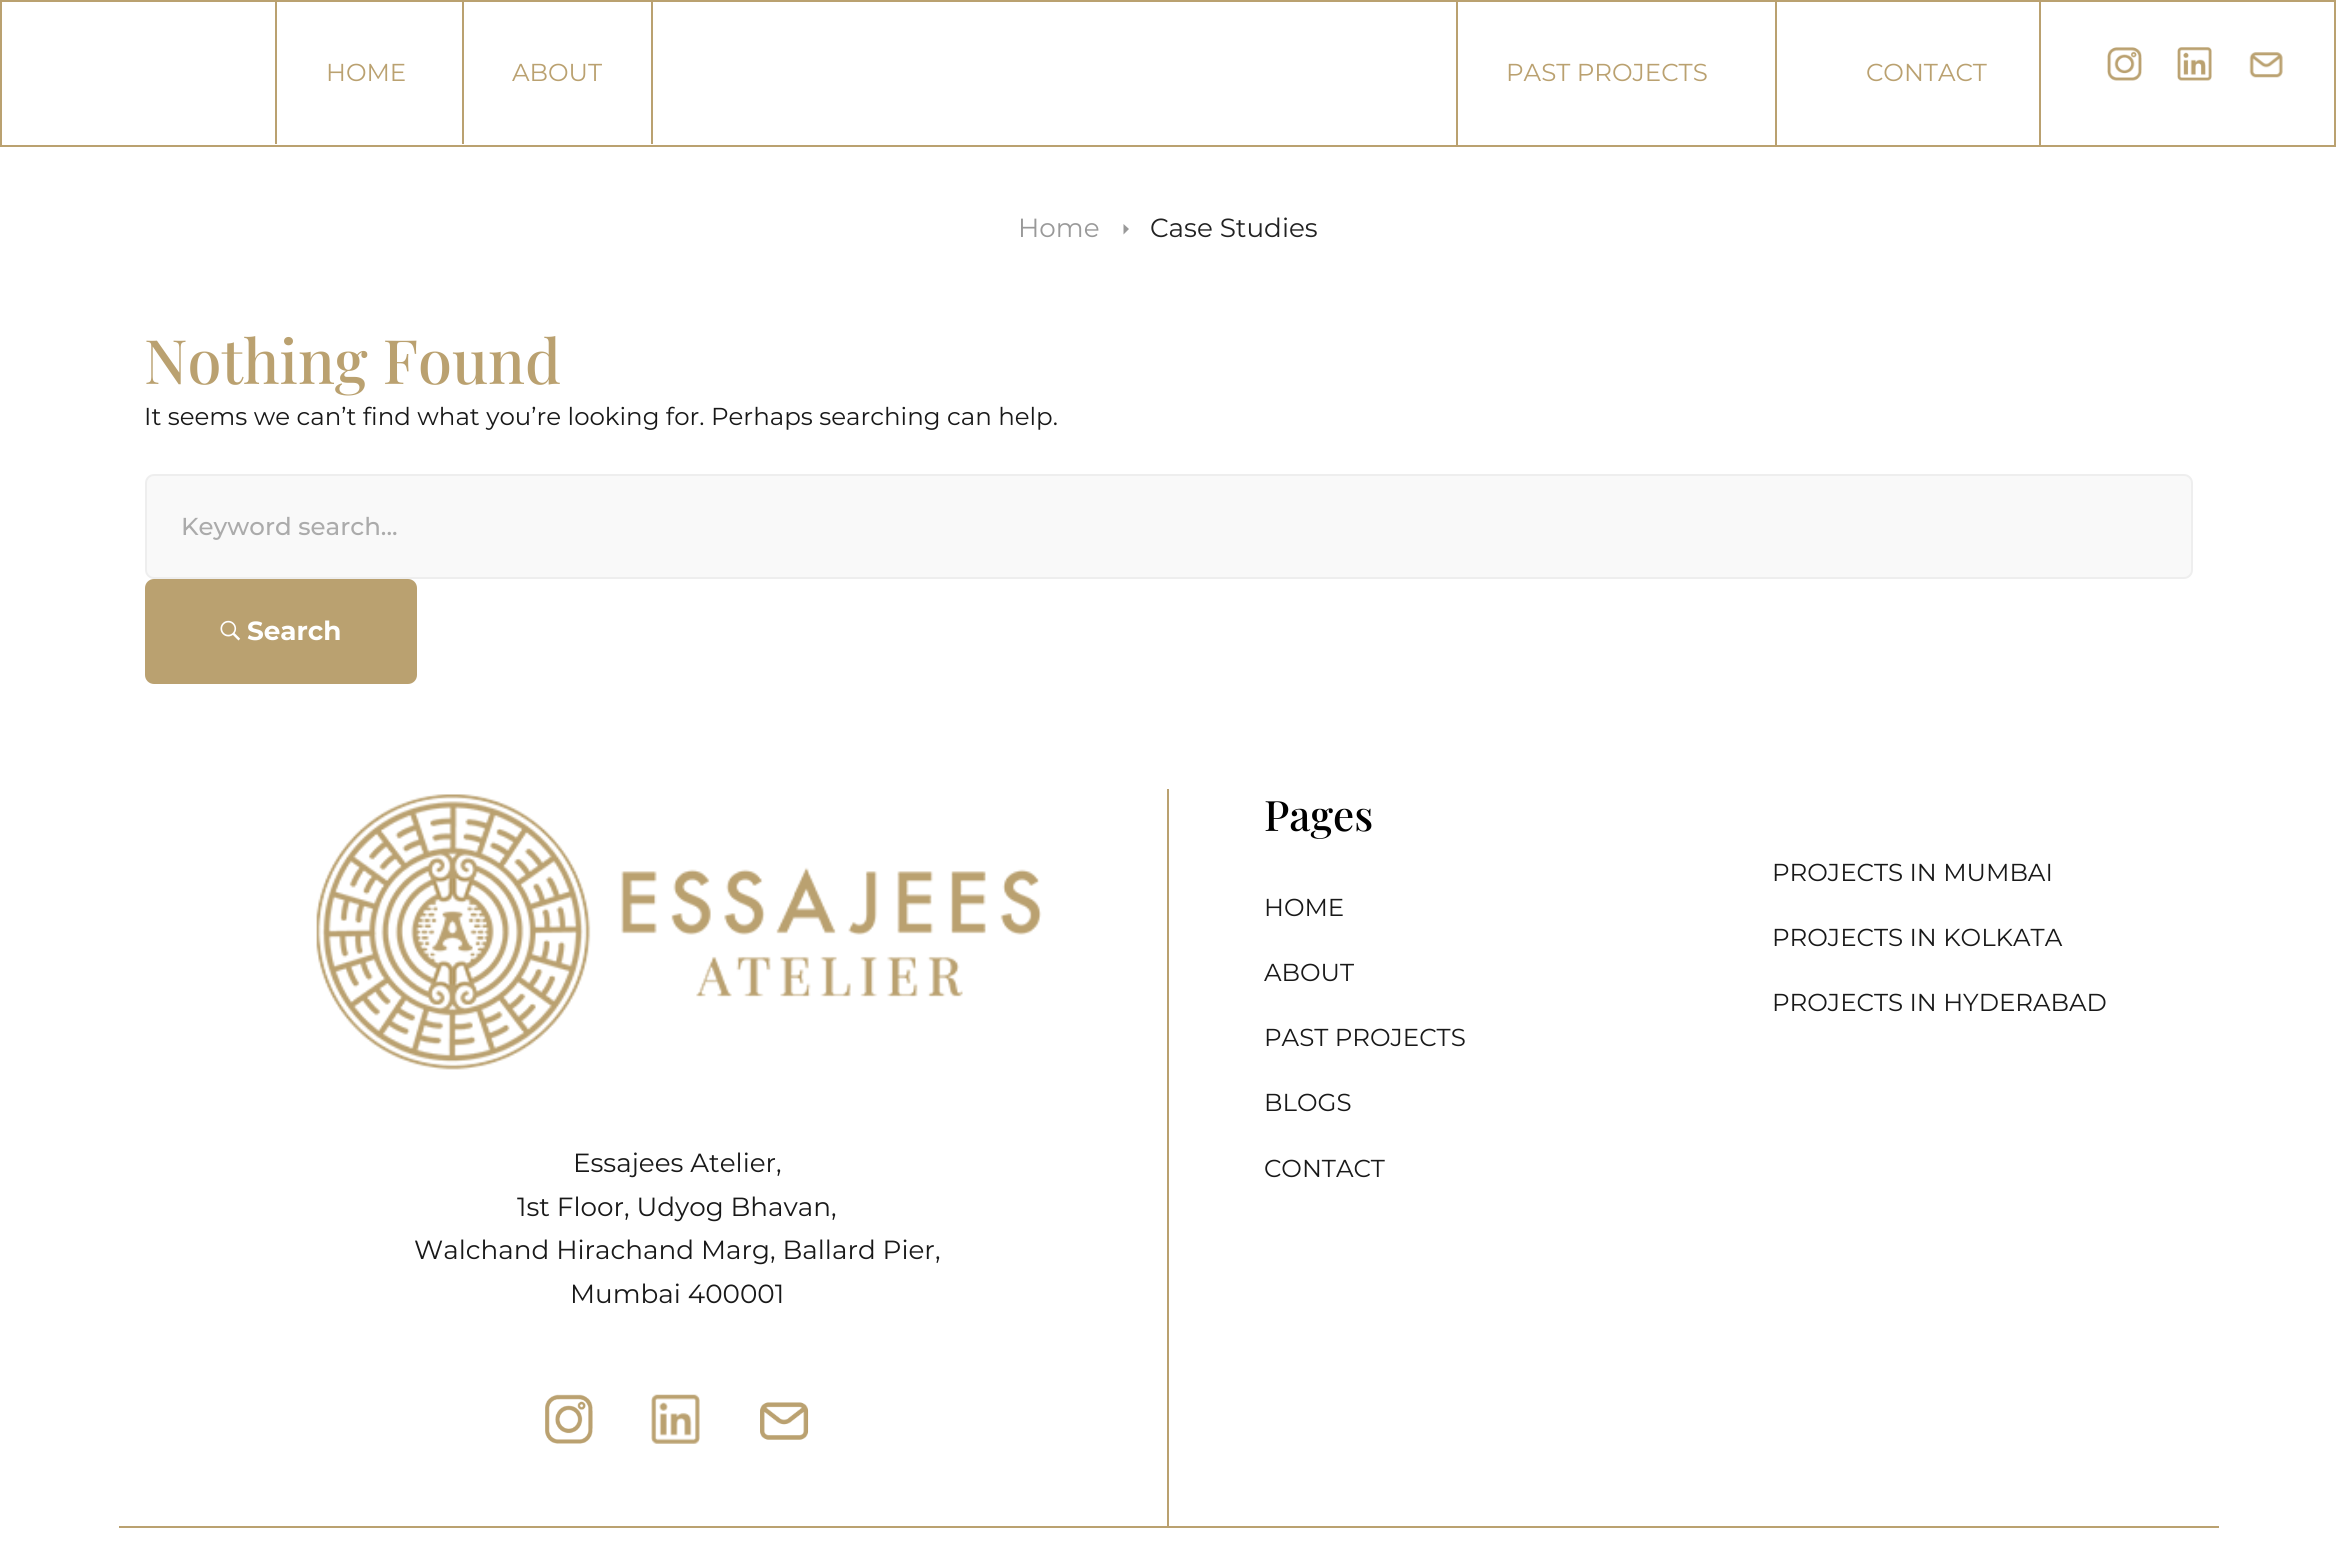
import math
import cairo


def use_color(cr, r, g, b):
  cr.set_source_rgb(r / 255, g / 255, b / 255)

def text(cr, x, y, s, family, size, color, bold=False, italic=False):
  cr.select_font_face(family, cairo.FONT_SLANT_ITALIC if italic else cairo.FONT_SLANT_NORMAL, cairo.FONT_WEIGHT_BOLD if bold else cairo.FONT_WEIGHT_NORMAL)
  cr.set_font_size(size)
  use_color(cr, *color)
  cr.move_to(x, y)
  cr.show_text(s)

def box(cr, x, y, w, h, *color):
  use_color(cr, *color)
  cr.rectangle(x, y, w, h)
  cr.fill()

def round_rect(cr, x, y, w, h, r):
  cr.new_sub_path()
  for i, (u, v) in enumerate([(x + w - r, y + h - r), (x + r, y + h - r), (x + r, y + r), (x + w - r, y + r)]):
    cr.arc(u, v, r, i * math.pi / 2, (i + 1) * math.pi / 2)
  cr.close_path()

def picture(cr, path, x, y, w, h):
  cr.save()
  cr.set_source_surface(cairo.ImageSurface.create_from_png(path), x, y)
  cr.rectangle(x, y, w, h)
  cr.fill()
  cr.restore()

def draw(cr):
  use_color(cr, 255, 255, 255)
  cr.paint()
  cr.rectangle(1, 1, 2334, 145)
  use_color(cr, 186, 161, 112)
  cr.stroke()
  box(cr, 275, 0, 2, 144, 186, 161, 112)
  box(cr, 651, 0, 2, 144, 186, 161, 112)
  box(cr, 462, 0, 2, 144, 186, 161, 112)
  box(cr, 1456, 2, 2, 143, 186, 161, 112)
  box(cr, 1775, 2, 2, 143, 186, 161, 112)
  box(cr, 2039, 2, 2, 143, 186, 161, 112)
  picture(cr, "img_01.png", 2107, 47, 35, 34)
  picture(cr, "img_02.png", 2177, 47, 35, 34)
  picture(cr, "img_03.png", 2249, 52, 34, 26)
  use_color(cr, 153, 153, 153)
  cr.new_path()
  cr.move_to(1123.5, 224)
  cr.line_to(1129, 229)
  cr.line_to(1123.5, 234.5)
  cr.close_path()
  cr.fill()
  use_color(cr, 249, 249, 249)
  round_rect(cr, 146, 475, 2046, 103, 8)
  cr.fill_preserve()
  use_color(cr, 238, 238, 238)
  cr.stroke()
  use_color(cr, 186, 161, 112)
  round_rect(cr, 147, 581, 268, 101, 7)
  cr.fill_preserve()
  cr.set_line_width(4)
  cr.stroke()
  picture(cr, "img_04.png", 220, 620, 21, 21)
  box(cr, 1167, 789, 2, 737, 186, 161, 112)
  picture(cr, "img_05.png", 316, 794, 726, 276)
  picture(cr, "img_06.png", 545, 1394, 48, 50)
  picture(cr, "img_07.png", 651, 1394, 49, 50)
  picture(cr, "img_08.png", 760, 1402, 49, 38)
  box(cr, 119, 1526, 2100, 2, 186, 161, 112)
  text(cr, 326, 81, "HOME", "Montserrat", 24.5, (186, 161, 112))
  text(cr, 512, 81, "ABOUT", "Montserrat", 24.5, (186, 161, 112))
  text(cr, 1506, 81, "PAST PROJECTS", "Montserrat", 24.5, (186, 161, 112))
  text(cr, 1866, 81, "CONTACT", "Montserrat", 24.5, (186, 161, 112))
  text(cr, 1018, 237, "Home", "Montserrat", 26.25, (153, 153, 153))
  text(cr, 1150, 237, "Case Studies", "Montserrat", 26.25, (34, 34, 34))
  text(cr, 144, 384, "Nothing Found", "Playfair Display Medium", 61.25, (186, 161, 112))
  text(cr, 144, 425, "It seems we can’t find what you’re looking for. Perhaps searching can help.", "Montserrat", 24.5, (25, 25, 25))
  text(cr, 181, 535, "Keyword search...", "Montserrat Medium", 24.5, (171, 171, 171))
  text(cr, 247, 640, "Search", "Montserrat", 26.25, (255, 255, 255), bold=True)
  text(cr, 1264, 831, "Pages", "Playfair Display Medium", 42, (0, 0, 0))
  text(cr, 1264, 916, "HOME", "Montserrat", 24.5, (25, 25, 25))
  text(cr, 1264, 981, "ABOUT", "Montserrat", 24.5, (25, 25, 25))
  text(cr, 1264, 1046, "PAST PROJECTS", "Montserrat", 24.5, (25, 25, 25))
  text(cr, 1264, 1111, "BLOGS", "Montserrat", 24.5, (25, 25, 25))
  text(cr, 1264, 1177, "CONTACT", "Montserrat", 24.5, (25, 25, 25))
  text(cr, 1772, 881, "PROJECTS IN MUMBAI", "Montserrat", 24.5, (25, 25, 25))
  text(cr, 1772, 946, "PROJECTS IN KOLKATA", "Montserrat", 24.5, (25, 25, 25))
  text(cr, 1772, 1011, "PROJECTS IN HYDERABAD", "Montserrat", 24.5, (25, 25, 25))
  text(cr, 573, 1172, "Essajees Atelier,", "Montserrat", 26.25, (25, 25, 25))
  text(cr, 517, 1216, "1st Floor, Udyog Bhavan,", "Montserrat", 26.25, (25, 25, 25))
  text(cr, 414, 1259, "Walchand Hirachand Marg, Ballard Pier,", "Montserrat", 26.25, (25, 25, 25))
  text(cr, 570, 1303, "Mumbai 400001", "Montserrat", 26.25, (25, 25, 25))


surface = cairo.ImageSurface(cairo.FORMAT_RGB24, 2336, 1551)
cr = cairo.Context(surface)
options = cairo.FontOptions()
options.set_hint_metrics(cairo.HINT_METRICS_OFF)
options.set_hint_style(cairo.HINT_STYLE_NONE)
cr.set_font_options(options)
cr.set_miter_limit(4)
draw(cr)
surface.write_to_png("out.png")
